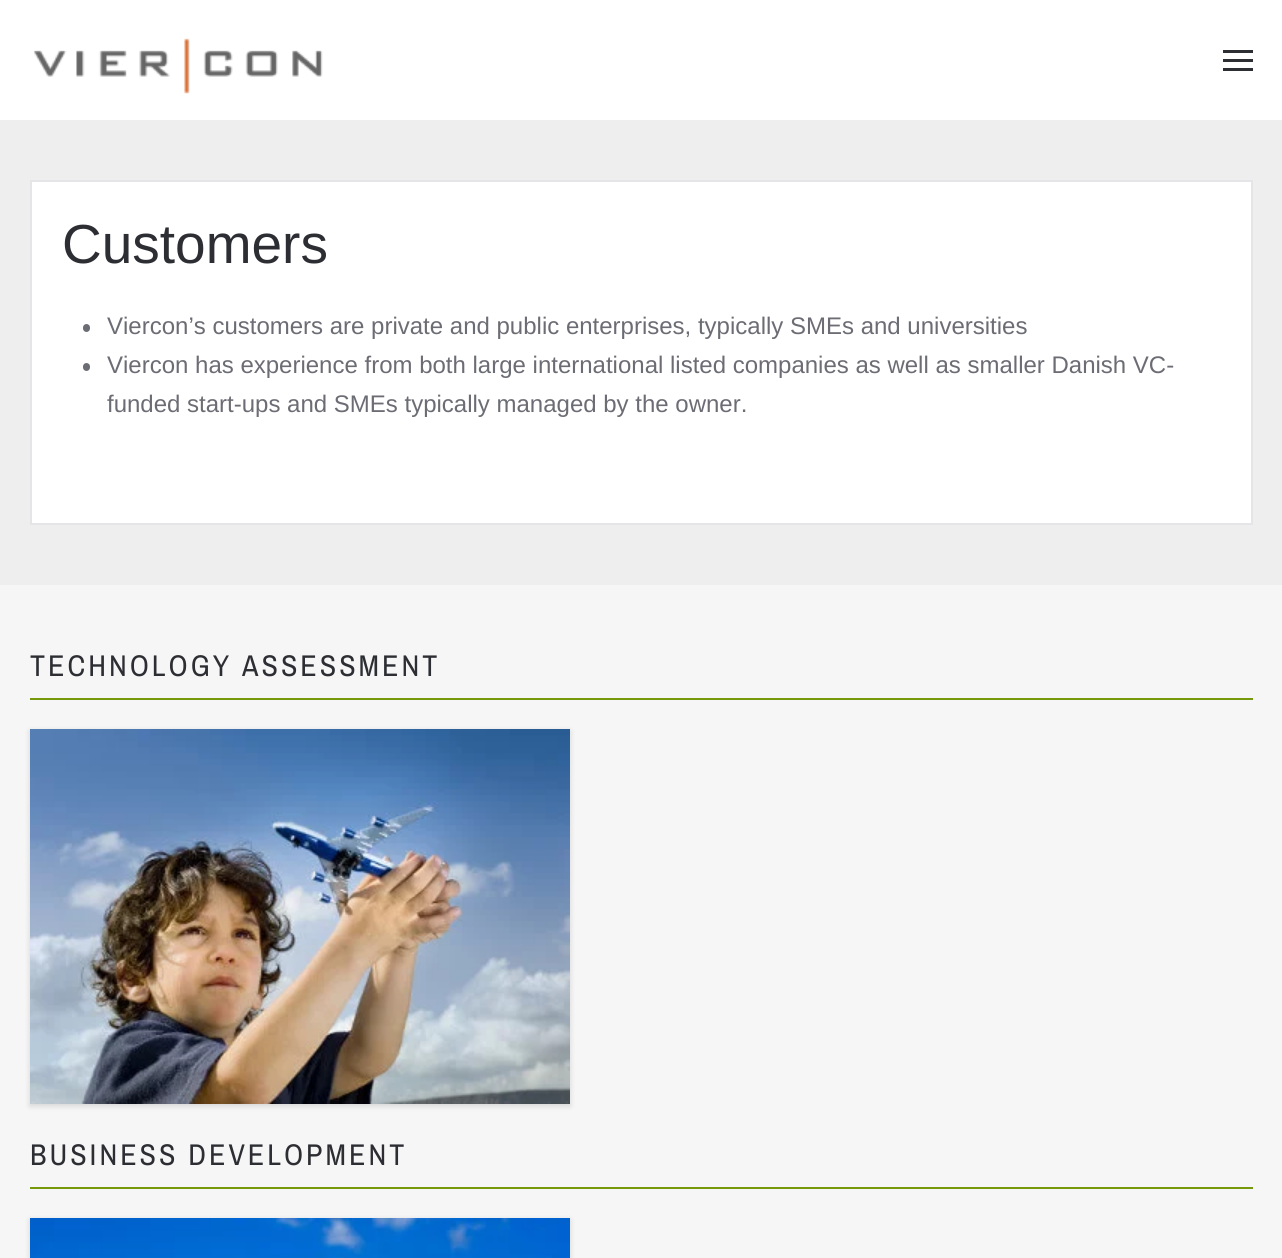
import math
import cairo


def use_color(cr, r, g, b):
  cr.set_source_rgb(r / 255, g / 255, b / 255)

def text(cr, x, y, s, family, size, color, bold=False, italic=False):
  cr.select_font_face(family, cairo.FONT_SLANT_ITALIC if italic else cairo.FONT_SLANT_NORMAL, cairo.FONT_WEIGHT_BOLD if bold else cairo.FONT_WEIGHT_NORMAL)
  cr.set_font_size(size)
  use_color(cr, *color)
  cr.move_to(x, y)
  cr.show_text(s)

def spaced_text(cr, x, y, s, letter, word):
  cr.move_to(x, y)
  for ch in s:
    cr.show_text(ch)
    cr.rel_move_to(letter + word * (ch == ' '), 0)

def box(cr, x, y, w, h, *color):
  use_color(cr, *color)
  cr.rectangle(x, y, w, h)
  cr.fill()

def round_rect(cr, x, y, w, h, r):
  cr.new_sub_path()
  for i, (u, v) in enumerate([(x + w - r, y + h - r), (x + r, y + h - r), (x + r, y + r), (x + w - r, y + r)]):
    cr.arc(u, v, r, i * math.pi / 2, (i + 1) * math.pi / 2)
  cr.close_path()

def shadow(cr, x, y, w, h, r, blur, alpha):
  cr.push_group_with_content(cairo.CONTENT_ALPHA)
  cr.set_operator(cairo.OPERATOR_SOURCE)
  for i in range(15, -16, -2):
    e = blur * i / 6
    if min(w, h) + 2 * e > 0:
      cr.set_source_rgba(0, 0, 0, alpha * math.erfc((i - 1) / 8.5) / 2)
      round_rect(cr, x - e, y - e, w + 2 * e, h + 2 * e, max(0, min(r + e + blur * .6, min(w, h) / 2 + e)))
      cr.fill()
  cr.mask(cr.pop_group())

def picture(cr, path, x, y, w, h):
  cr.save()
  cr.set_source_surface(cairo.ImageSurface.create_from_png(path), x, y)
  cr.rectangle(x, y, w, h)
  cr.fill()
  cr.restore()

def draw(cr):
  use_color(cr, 238, 238, 238)
  cr.paint()
  box(cr, 0, 0, 1282, 120, 255, 255, 255)
  picture(cr, "img_01.png", 33, 38, 290, 56)
  box(cr, 1223, 50, 30, 3, 45, 46, 51)
  box(cr, 1223, 59, 30, 3, 45, 46, 51)
  box(cr, 1223, 68, 30, 3, 45, 46, 51)
  use_color(cr, 255, 255, 255)
  cr.rectangle(31, 181, 1221, 343)
  cr.fill_preserve()
  use_color(cr, 229, 229, 231)
  cr.stroke()
  use_color(cr, 108, 109, 116)
  round_rect(cr, 83, 324, 7, 8, 3.5)
  cr.fill()
  round_rect(cr, 83, 363, 7, 8, 3.5)
  cr.fill()
  box(cr, 0, 585, 1282, 673, 246, 246, 246)
  box(cr, 30, 698, 1223, 2, 118, 153, 12)
  use_color(cr, 0, 0, 0)
  shadow(cr, 30, 731, 540, 375, 0, 3, 0.14)
  picture(cr, "img_02.png", 30, 729, 540, 375)
  box(cr, 30, 1187, 1223, 2, 118, 153, 12)
  use_color(cr, 0, 0, 0)
  shadow(cr, 30, 1220, 540, 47, 0, 3, 0.14)
  picture(cr, "img_03.png", 30, 1218, 540, 40)
  text(cr, 62, 263, "Customers", "Liberation Sans", 55, (45, 46, 51))
  text(cr, 107, 334, "Viercon’s customers are private and public enterprises, typically SMEs and universities", "Liberation Sans", 24, (108, 109, 116))
  text(cr, 107, 373, "Viercon has experience from both large international listed companies as well as smaller Danish VC-", "Liberation Sans", 24, (108, 109, 116))
  text(cr, 107, 412, "funded start-ups and SMEs typically managed by the owner.", "Liberation Sans", 24, (108, 109, 116))
  cr.select_font_face("Archivo Narrow")
  cr.set_font_size(30)
  use_color(cr, 45, 46, 51)
  spaced_text(cr, 30, 676, "TECHNOLOGY ASSESSMENT", 3, 0)
  spaced_text(cr, 30, 1165, "BUSINESS DEVELOPMENT", 3, 0)


surface = cairo.ImageSurface(cairo.FORMAT_RGB24, 1282, 1258)
cr = cairo.Context(surface)
options = cairo.FontOptions()
options.set_hint_metrics(cairo.HINT_METRICS_OFF)
options.set_hint_style(cairo.HINT_STYLE_NONE)
cr.set_font_options(options)
cr.set_miter_limit(4)
draw(cr)
surface.write_to_png("out.png")
